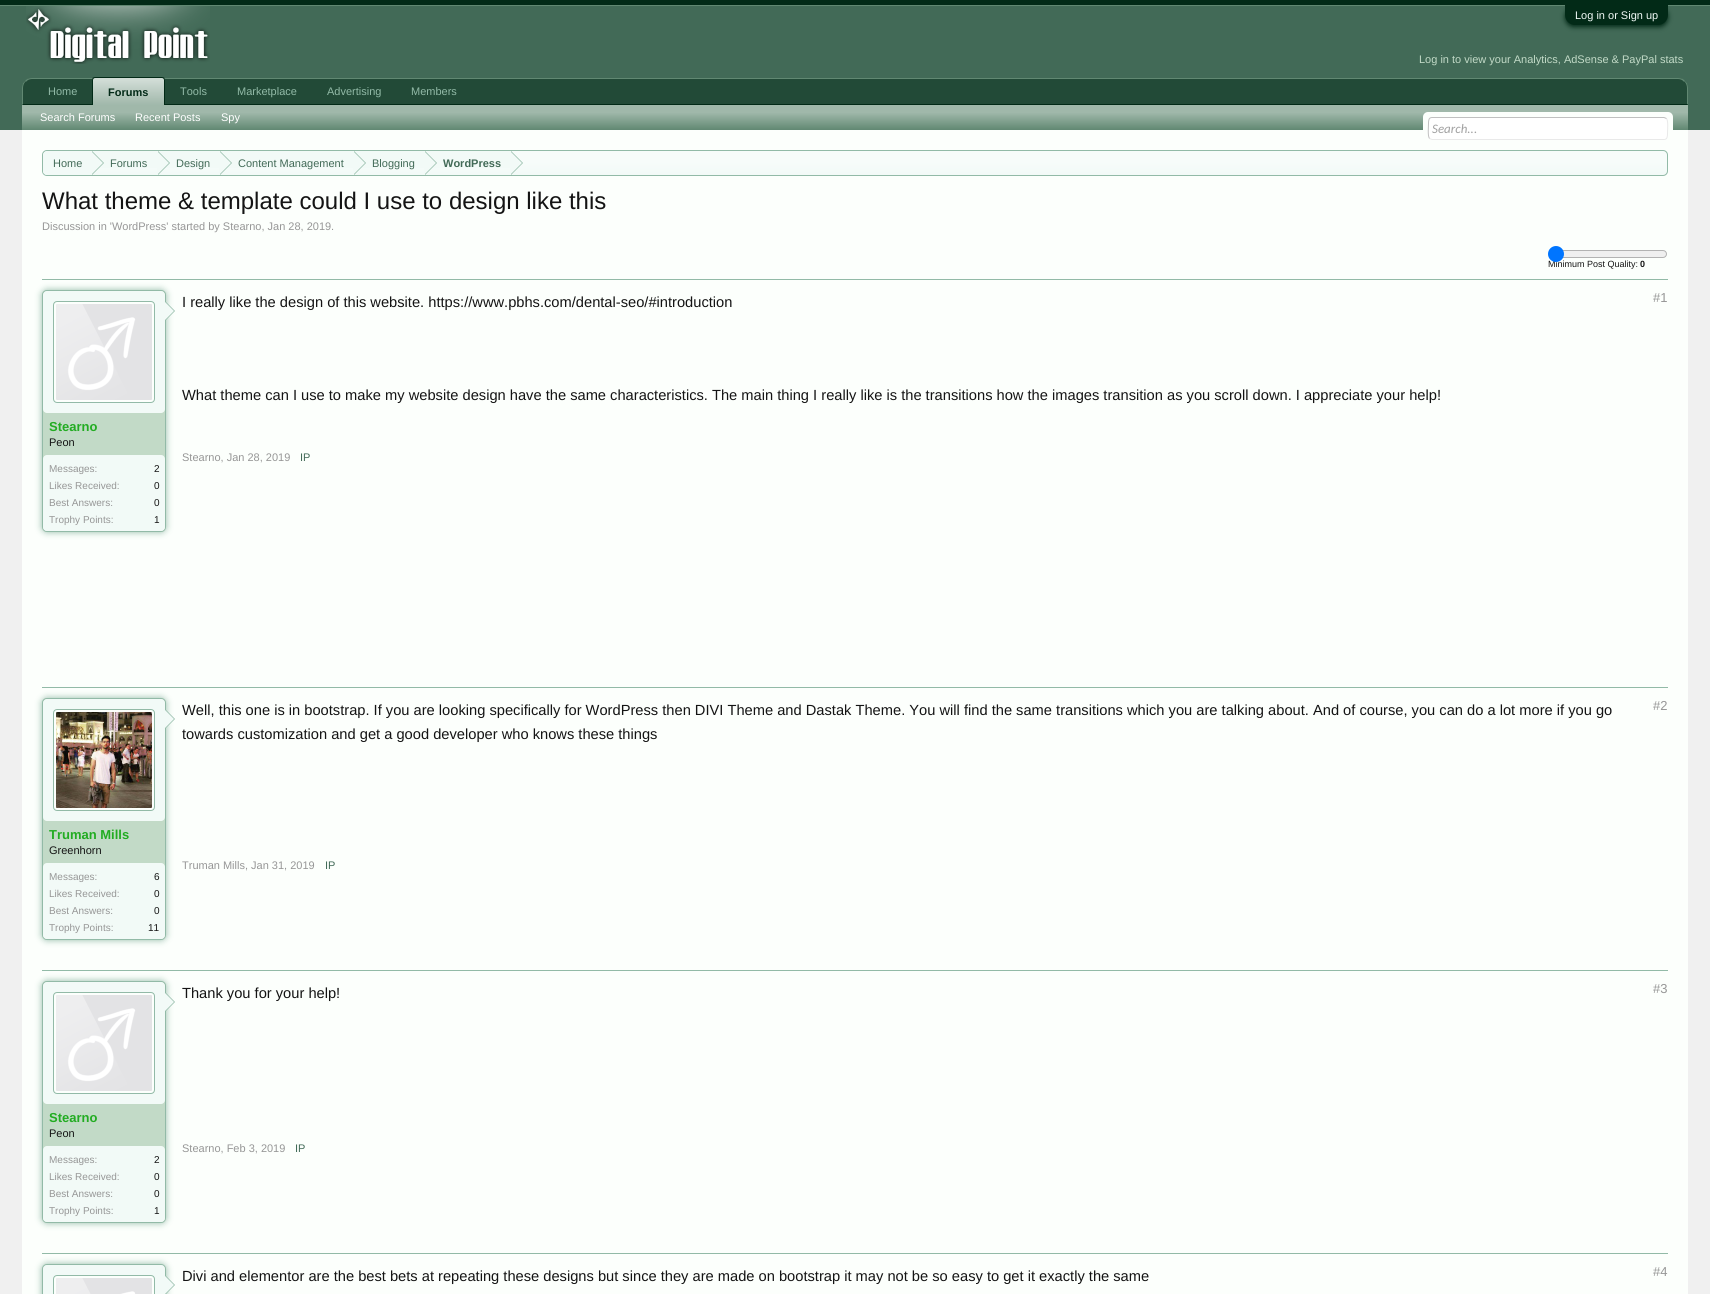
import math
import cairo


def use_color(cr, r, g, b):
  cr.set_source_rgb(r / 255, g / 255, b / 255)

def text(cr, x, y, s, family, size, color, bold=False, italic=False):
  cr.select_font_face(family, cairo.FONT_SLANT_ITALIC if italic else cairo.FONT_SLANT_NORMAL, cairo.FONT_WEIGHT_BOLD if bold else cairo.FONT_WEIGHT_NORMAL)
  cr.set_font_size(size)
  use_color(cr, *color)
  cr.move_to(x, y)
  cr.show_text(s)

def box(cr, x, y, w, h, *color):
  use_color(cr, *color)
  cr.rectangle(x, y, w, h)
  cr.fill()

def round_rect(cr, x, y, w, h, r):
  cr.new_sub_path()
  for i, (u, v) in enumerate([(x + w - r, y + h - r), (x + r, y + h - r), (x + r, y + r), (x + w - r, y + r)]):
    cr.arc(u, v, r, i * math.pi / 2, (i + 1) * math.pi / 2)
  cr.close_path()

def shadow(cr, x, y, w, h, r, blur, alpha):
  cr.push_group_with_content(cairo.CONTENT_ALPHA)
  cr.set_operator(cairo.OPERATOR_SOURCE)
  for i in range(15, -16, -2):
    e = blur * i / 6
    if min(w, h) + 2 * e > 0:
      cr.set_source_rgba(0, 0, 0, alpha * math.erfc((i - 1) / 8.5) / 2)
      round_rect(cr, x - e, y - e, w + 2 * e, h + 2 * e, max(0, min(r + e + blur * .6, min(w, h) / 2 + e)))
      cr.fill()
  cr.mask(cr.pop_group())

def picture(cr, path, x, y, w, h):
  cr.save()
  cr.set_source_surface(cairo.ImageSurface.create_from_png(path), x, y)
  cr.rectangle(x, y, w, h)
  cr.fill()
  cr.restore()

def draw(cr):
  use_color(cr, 240, 240, 240)
  cr.paint()
  box(cr, 0, 0, 1710, 5, 2, 42, 23)
  box(cr, 0, 5, 1710, 1, 97, 136, 114)
  box(cr, 0, 6, 1710, 124, 66, 106, 87)
  use_color(cr, 2, 42, 23)
  shadow(cr, 1565, 7, 103, 20, 10, 2.5, 1)
  use_color(cr, 2, 42, 23)
  cr.new_path()
  cr.move_to(1565, 5)
  cr.line_to(1668, 5)
  cr.line_to(1668, 15)
  cr.curve_to(1668, 20.5, 1663.5, 25, 1658, 25)
  cr.line_to(1575, 25)
  cr.curve_to(1569.5, 25, 1565, 20.5, 1565, 15)
  cr.close_path()
  cr.fill()
  picture(cr, "img_01.png", 26, 6, 184, 58)
  use_color(cr, 34, 74, 55)
  cr.new_path()
  cr.move_to(32, 78)
  cr.line_to(1678, 78)
  cr.curve_to(1683.5, 78, 1688, 82.5, 1688, 88)
  cr.line_to(1688, 105)
  cr.line_to(22, 105)
  cr.line_to(22, 88)
  cr.curve_to(22, 82.5, 26.5, 78, 32, 78)
  cr.close_path()
  cr.fill()
  use_color(cr, 97, 136, 114)
  cr.new_path()
  cr.move_to(32, 78)
  cr.curve_to(29, 78, 26, 79, 25, 81)
  cr.line_to(26, 82)
  cr.curve_to(27, 80, 30, 79, 32, 79)
  cr.line_to(1678, 79)
  cr.curve_to(1680, 79, 1683, 80, 1684, 82)
  cr.line_to(1685, 81)
  cr.curve_to(1684, 79, 1681, 78, 1678, 78)
  cr.close_path()
  cr.fill()
  cr.new_path()
  cr.move_to(1688, 105)
  cr.line_to(1688, 88)
  cr.curve_to(1688, 85, 1687, 82.5, 1685, 81)
  cr.line_to(1684.5, 81.5)
  cr.curve_to(1686, 83, 1687, 85.5, 1687, 88)
  cr.line_to(1687, 104)
  cr.close_path()
  cr.fill()
  use_color(cr, 2, 42, 23)
  cr.new_path()
  cr.move_to(1688, 105)
  cr.line_to(1687, 104)
  cr.line_to(23, 104)
  cr.line_to(22, 105)
  cr.close_path()
  cr.fill()
  use_color(cr, 97, 136, 114)
  cr.new_path()
  cr.move_to(22, 105)
  cr.line_to(23, 104)
  cr.line_to(23, 88)
  cr.curve_to(23, 85.5, 24, 83, 25.5, 81.5)
  cr.line_to(25, 81)
  cr.curve_to(23, 82.5, 22, 85, 22, 88)
  cr.close_path()
  cr.fill()
  cr.new_path()
  cr.move_to(95, 77)
  cr.line_to(162, 77)
  cr.curve_to(163.5, 77, 165, 78.5, 165, 80)
  cr.line_to(165, 105)
  cr.line_to(92, 105)
  cr.line_to(92, 80)
  cr.curve_to(92, 78.5, 93.5, 77, 95, 77)
  cr.close_path()
  cr.fill()
  cr.save()
  cr.new_path()
  cr.move_to(95, 77)
  cr.line_to(162, 77)
  cr.curve_to(163.5, 77, 165, 78.5, 165, 80)
  cr.line_to(165, 105)
  cr.line_to(92, 105)
  cr.line_to(92, 80)
  cr.curve_to(92, 78.5, 93.5, 77, 95, 77)
  cr.close_path()
  cr.clip()
  gradient = cairo.LinearGradient(129, 78, 129, 105)
  gradient.add_color_stop_rgba(0, 1, 1, 1, 0.7)
  gradient.add_color_stop_rgba(0.1, 1, 1, 1, 0.7)
  gradient.add_color_stop_rgba(1, 1, 1, 1, 0.4)
  cr.set_source(gradient)
  cr.rectangle(92, 78, 73, 27)
  cr.fill()
  cr.restore()
  use_color(cr, 2, 42, 23)
  cr.set_fill_rule(cairo.FILL_RULE_EVEN_ODD)
  cr.new_path()
  cr.move_to(95, 77)
  cr.line_to(162, 77)
  cr.curve_to(164, 77, 165, 78, 165, 80)
  cr.line_to(165, 105)
  cr.line_to(92, 105)
  cr.line_to(92, 80)
  cr.curve_to(92, 78, 93, 77, 95, 77)
  cr.close_path()
  cr.move_to(95, 78)
  cr.line_to(162, 78)
  cr.curve_to(163, 78, 164, 79, 164, 80)
  cr.line_to(164, 105)
  cr.line_to(93, 105)
  cr.line_to(93, 80)
  cr.curve_to(93, 79, 94, 78, 95, 78)
  cr.close_path()
  cr.fill()
  gradient = cairo.LinearGradient(855, 105, 855, 130)
  gradient.add_color_stop_rgba(0, 0.627, 0.722, 0.667, 1)
  gradient.add_color_stop_rgba(0.3, 0.627, 0.722, 0.667, 1)
  gradient.add_color_stop_rgba(1, 0.38, 0.533, 0.447, 1)
  cr.set_source(gradient)
  cr.rectangle(22, 105, 1666, 25)
  cr.fill()
  box(cr, 22, 130, 1666, 1164, 252, 255, 252)
  round_rect(cr, 1423, 112, 250, 28, 5)
  cr.fill()
  use_color(cr, 255, 255, 255)
  round_rect(cr, 1428, 117, 240, 23, 4)
  cr.fill()
  cr.new_path()
  cr.move_to(1666.5, 118.5)
  cr.curve_to(1668.5, 121, 1667.5, 130.5, 1667.5, 133.5)
  cr.curve_to(1667.5, 136, 1667.5, 139.5, 1664, 139.5)
  cr.line_to(1432, 139.5)
  cr.line_to(1429.5, 138.5)
  use_color(cr, 233, 233, 233)
  cr.set_line_width(1)
  cr.stroke()
  cr.new_path()
  cr.move_to(1429.5, 138.5)
  cr.curve_to(1427.5, 136, 1428.5, 126.5, 1428.5, 123.5)
  cr.curve_to(1428.5, 121, 1428.5, 117.5, 1432, 117.5)
  cr.line_to(1664, 117.5)
  cr.line_to(1666.5, 118.5)
  use_color(cr, 192, 192, 192)
  cr.stroke()
  use_color(cr, 242, 250, 247)
  round_rect(cr, 42, 150, 1626, 26, 5)
  cr.fill()
  cr.save()
  cr.set_fill_rule(cairo.FILL_RULE_WINDING)
  round_rect(cr, 42, 150, 1626, 26, 5)
  cr.clip()
  gradient = cairo.LinearGradient(855, 151, 855, 175)
  gradient.add_color_stop_rgba(0, 1, 1, 1, 0.35)
  gradient.add_color_stop_rgba(0.5, 1, 1, 1, 0.35)
  gradient.add_color_stop_rgba(1, 1, 1, 1, 0)
  cr.set_source(gradient)
  cr.rectangle(42, 151, 1626, 23)
  cr.fill()
  cr.restore()
  round_rect(cr, 42.5, 150.5, 1625, 25, 4.5)
  use_color(cr, 146, 186, 167)
  cr.stroke()
  cr.save()
  cr.set_fill_rule(cairo.FILL_RULE_WINDING)
  round_rect(cr, 43, 151, 1624, 24, 4)
  cr.clip()
  use_color(cr, 242, 250, 247)
  cr.new_path()
  cr.move_to(48, 151)
  cr.line_to(92, 151)
  cr.line_to(92, 176)
  cr.line_to(48, 176)
  cr.curve_to(45, 176, 43, 174, 43, 171)
  cr.line_to(43, 156)
  cr.curve_to(43, 153, 45, 151, 48, 151)
  cr.close_path()
  cr.fill()
  cr.restore()
  box(cr, 92, 151, 419, 17, 242, 250, 247)
  use_color(cr, 146, 186, 167)
  cr.set_fill_rule(cairo.FILL_RULE_WINDING)
  cr.new_path()
  cr.move_to(92, 175)
  cr.line_to(92, 151)
  cr.line_to(104, 163)
  cr.close_path()
  cr.fill()
  use_color(cr, 242, 250, 247)
  cr.new_path()
  cr.move_to(91, 175)
  cr.line_to(91, 151)
  cr.line_to(103, 163)
  cr.close_path()
  cr.fill()
  use_color(cr, 146, 186, 167)
  cr.new_path()
  cr.move_to(158, 175)
  cr.line_to(158, 151)
  cr.line_to(170, 163)
  cr.close_path()
  cr.fill()
  use_color(cr, 242, 250, 247)
  cr.new_path()
  cr.move_to(157, 175)
  cr.line_to(157, 151)
  cr.line_to(169, 163)
  cr.close_path()
  cr.fill()
  use_color(cr, 146, 186, 167)
  cr.new_path()
  cr.move_to(220, 175)
  cr.line_to(220, 151)
  cr.line_to(232, 163)
  cr.close_path()
  cr.fill()
  use_color(cr, 242, 250, 247)
  cr.new_path()
  cr.move_to(219, 175)
  cr.line_to(219, 151)
  cr.line_to(231, 163)
  cr.close_path()
  cr.fill()
  use_color(cr, 146, 186, 167)
  cr.new_path()
  cr.move_to(354, 175)
  cr.line_to(354, 151)
  cr.line_to(366, 163)
  cr.close_path()
  cr.fill()
  use_color(cr, 242, 250, 247)
  cr.new_path()
  cr.move_to(353, 175)
  cr.line_to(353, 151)
  cr.line_to(365, 163)
  cr.close_path()
  cr.fill()
  use_color(cr, 146, 186, 167)
  cr.new_path()
  cr.move_to(425, 175)
  cr.line_to(425, 151)
  cr.line_to(437, 163)
  cr.close_path()
  cr.fill()
  use_color(cr, 242, 250, 247)
  cr.new_path()
  cr.move_to(424, 175)
  cr.line_to(424, 151)
  cr.line_to(436, 163)
  cr.close_path()
  cr.fill()
  use_color(cr, 146, 186, 167)
  cr.new_path()
  cr.move_to(511, 175)
  cr.line_to(511, 151)
  cr.line_to(523, 163)
  cr.close_path()
  cr.fill()
  use_color(cr, 242, 250, 247)
  cr.new_path()
  cr.move_to(510, 175)
  cr.line_to(510, 151)
  cr.line_to(522, 163)
  cr.close_path()
  cr.fill()
  use_color(cr, 239, 239, 239)
  round_rect(cr, 1549.5, 250.5, 117, 7, 3.5)
  cr.fill_preserve()
  use_color(cr, 178, 178, 178)
  cr.stroke()
  box(cr, 42, 279, 1626, 1, 146, 186, 167)
  use_color(cr, 146, 186, 167)
  shadow(cr, 42, 290, 124, 242, 5, 3.5, 1)
  use_color(cr, 194, 218, 199)
  round_rect(cr, 42, 290, 124, 242, 5)
  cr.fill()
  cr.save()
  round_rect(cr, 42, 290, 124, 242, 5)
  cr.clip()
  gradient = cairo.LinearGradient(104, 291, 104, 531)
  gradient.add_color_stop_rgba(0.95, 1, 1, 1, 0)
  gradient.add_color_stop_rgba(1, 1, 1, 1, 0.5)
  cr.set_source(gradient)
  cr.rectangle(42, 527, 124, 4)
  cr.fill()
  cr.restore()
  round_rect(cr, 42.5, 290.5, 123, 241, 4.5)
  use_color(cr, 146, 186, 167)
  cr.stroke()
  use_color(cr, 242, 250, 247)
  round_rect(cr, 43, 291, 122, 122, 4)
  cr.fill()
  use_color(cr, 252, 255, 252)
  round_rect(cr, 53.5, 301.5, 101, 101, 3.5)
  cr.fill_preserve()
  use_color(cr, 146, 186, 167)
  cr.stroke()
  picture(cr, "img_02.png", 56, 304, 96, 96)
  cr.new_path()
  cr.move_to(165, 321)
  cr.line_to(165, 301)
  cr.line_to(175, 311)
  cr.close_path()
  cr.fill()
  use_color(cr, 242, 250, 247)
  cr.new_path()
  cr.move_to(164, 321)
  cr.line_to(164, 301)
  cr.line_to(174, 311)
  cr.close_path()
  cr.fill()
  round_rect(cr, 43, 455, 122, 76, 4)
  cr.fill()
  box(cr, 42, 687, 1626, 1, 146, 186, 167)
  use_color(cr, 146, 186, 167)
  shadow(cr, 42, 698, 124, 242, 5, 3.5, 1)
  use_color(cr, 194, 218, 199)
  round_rect(cr, 42, 698, 124, 242, 5)
  cr.fill()
  cr.save()
  round_rect(cr, 42, 698, 124, 242, 5)
  cr.clip()
  gradient = cairo.LinearGradient(104, 699, 104, 939)
  gradient.add_color_stop_rgba(0.95, 1, 1, 1, 0)
  gradient.add_color_stop_rgba(1, 1, 1, 1, 0.5)
  cr.set_source(gradient)
  cr.rectangle(42, 935, 124, 4)
  cr.fill()
  cr.restore()
  round_rect(cr, 42.5, 698.5, 123, 241, 4.5)
  use_color(cr, 146, 186, 167)
  cr.stroke()
  use_color(cr, 242, 250, 247)
  round_rect(cr, 43, 699, 122, 122, 4)
  cr.fill()
  use_color(cr, 252, 255, 252)
  round_rect(cr, 53.5, 709.5, 101, 101, 3.5)
  cr.fill_preserve()
  use_color(cr, 146, 186, 167)
  cr.stroke()
  picture(cr, "img_03.png", 56, 712, 96, 96)
  cr.new_path()
  cr.move_to(165, 729)
  cr.line_to(165, 709)
  cr.line_to(175, 719)
  cr.close_path()
  cr.fill()
  use_color(cr, 242, 250, 247)
  cr.new_path()
  cr.move_to(164, 729)
  cr.line_to(164, 709)
  cr.line_to(174, 719)
  cr.close_path()
  cr.fill()
  round_rect(cr, 43, 863, 122, 76, 4)
  cr.fill()
  box(cr, 42, 970, 1626, 1, 146, 186, 167)
  use_color(cr, 146, 186, 167)
  shadow(cr, 42, 981, 124, 242, 5, 3.5, 1)
  use_color(cr, 194, 218, 199)
  round_rect(cr, 42, 981, 124, 242, 5)
  cr.fill()
  cr.save()
  round_rect(cr, 42, 981, 124, 242, 5)
  cr.clip()
  gradient = cairo.LinearGradient(104, 982, 104, 1222)
  gradient.add_color_stop_rgba(0.95, 1, 1, 1, 0)
  gradient.add_color_stop_rgba(1, 1, 1, 1, 0.5)
  cr.set_source(gradient)
  cr.rectangle(42, 1218, 124, 4)
  cr.fill()
  cr.restore()
  round_rect(cr, 42.5, 981.5, 123, 241, 4.5)
  use_color(cr, 146, 186, 167)
  cr.stroke()
  use_color(cr, 242, 250, 247)
  round_rect(cr, 43, 982, 122, 122, 4)
  cr.fill()
  use_color(cr, 252, 255, 252)
  round_rect(cr, 53.5, 992.5, 101, 101, 3.5)
  cr.fill_preserve()
  use_color(cr, 146, 186, 167)
  cr.stroke()
  picture(cr, "img_02.png", 56, 995, 96, 96)
  cr.new_path()
  cr.move_to(165, 1012)
  cr.line_to(165, 992)
  cr.line_to(175, 1002)
  cr.close_path()
  cr.fill()
  use_color(cr, 242, 250, 247)
  cr.new_path()
  cr.move_to(164, 1012)
  cr.line_to(164, 992)
  cr.line_to(174, 1002)
  cr.close_path()
  cr.fill()
  round_rect(cr, 43, 1146, 122, 76, 4)
  cr.fill()
  box(cr, 42, 1253, 1626, 1, 146, 186, 167)
  use_color(cr, 146, 186, 167)
  shadow(cr, 42, 1264, 124, 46, 5, 3.5, 1)
  round_rect(cr, 42.5, 1264.5, 123, 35, 4.5)
  use_color(cr, 146, 186, 167)
  cr.stroke()
  use_color(cr, 242, 250, 247)
  round_rect(cr, 43, 1265, 122, 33, 4)
  cr.fill()
  use_color(cr, 252, 255, 252)
  round_rect(cr, 53.5, 1275.5, 101, 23, 3.5)
  cr.fill_preserve()
  use_color(cr, 146, 186, 167)
  cr.stroke()
  picture(cr, "img_04.png", 56, 1278, 96, 16)
  cr.new_path()
  cr.move_to(165, 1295)
  cr.line_to(165, 1275)
  cr.line_to(175, 1285)
  cr.close_path()
  cr.fill()
  use_color(cr, 242, 250, 247)
  cr.new_path()
  cr.move_to(164, 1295)
  cr.line_to(164, 1275)
  cr.line_to(174, 1285)
  cr.close_path()
  cr.fill()
  text(cr, 1575, 19, "Log in or Sign up", "Liberation Sans", 11, (242, 250, 247))
  text(cr, 1419, 63, "Log in to view your Analytics, AdSense & PayPal stats", "Liberation Sans", 11, (194, 218, 199))
  text(cr, 48, 95, "Home", "Liberation Sans", 11, (146, 186, 167))
  text(cr, 180, 95, "Tools", "Liberation Sans", 11, (146, 186, 167))
  text(cr, 237, 95, "Marketplace", "Liberation Sans", 11, (146, 186, 167))
  text(cr, 327, 95, "Advertising", "Liberation Sans", 11, (146, 186, 167))
  text(cr, 411, 95, "Members", "Liberation Sans", 11, (146, 186, 167))
  text(cr, 108, 96, "Forums", "Liberation Sans", 11, (2, 42, 23), bold=True)
  text(cr, 40, 121, "Search Forums", "Liberation Sans", 11, (255, 255, 255))
  text(cr, 135, 121, "Recent Posts", "Liberation Sans", 11, (255, 255, 255))
  text(cr, 221, 121, "Spy", "Liberation Sans", 11, (255, 255, 255))
  text(cr, 1432, 133, "Search...", "Carlito", 13, (160, 160, 160), italic=True)
  text(cr, 53, 167, "Home", "Liberation Sans", 11, (66, 106, 87))
  text(cr, 110, 167, "Forums", "Liberation Sans", 11, (66, 106, 87))
  text(cr, 176, 167, "Design", "Liberation Sans", 11, (66, 106, 87))
  text(cr, 238, 167, "Content Management", "Liberation Sans", 11, (66, 106, 87))
  text(cr, 372, 167, "Blogging", "Liberation Sans", 11, (66, 106, 87))
  text(cr, 443, 167, "WordPress", "Liberation Sans", 11, (66, 106, 87), bold=True)
  text(cr, 42, 209, "What theme & template could I use to design like this", "Liberation Sans", 24, (20, 20, 20))
  text(cr, 42, 230, "Discussion in 'WordPress' started by Stearno, Jan 28, 2019.", "Liberation Sans", 11, (150, 150, 150))
  text(cr, 1548, 267, "Minimum Post Quality:", "Liberation Sans", 9, (20, 20, 20))
  use_color(cr, 0, 117, 255)
  cr.new_path()
  cr.arc(1556, 254, 8, 0, 2 * math.pi)
  cr.fill()
  text(cr, 1640, 267, "0", "Liberation Sans", 9, (20, 20, 20), bold=True)
  text(cr, 182, 307, "I really like the design of this website. https://www.pbhs.com/dental-seo/#introduction", "Liberation Sans", 14.67, (20, 20, 20))
  text(cr, 182, 400, "What theme can I use to make my website design have the same characteristics. The main thing I really like is the transitions how the images transition as you scroll down. I appreciate your help!", "Liberation Sans", 14.67, (20, 20, 20))
  text(cr, 1653, 302, "#1", "Liberation Sans", 13, (150, 150, 150))
  text(cr, 182, 461, "Stearno, Jan 28, 2019", "Liberation Sans", 11, (150, 150, 150))
  text(cr, 300, 461, "IP", "Liberation Sans", 11, (66, 106, 87))
  text(cr, 49, 431, "Stearno", "Liberation Sans", 13, (34, 172, 34), bold=True)
  text(cr, 49, 446, "Peon", "Liberation Sans", 11, (20, 20, 20))
  text(cr, 49, 472, "Messages:", "Liberation Sans", 10, (150, 150, 150))
  text(cr, 154, 472, "2", "Liberation Sans", 10, (20, 20, 20))
  text(cr, 49, 489, "Likes Received:", "Liberation Sans", 10, (150, 150, 150))
  text(cr, 154, 489, "0", "Liberation Sans", 10, (20, 20, 20))
  text(cr, 49, 506, "Best Answers:", "Liberation Sans", 10, (150, 150, 150))
  text(cr, 154, 506, "0", "Liberation Sans", 10, (20, 20, 20))
  text(cr, 49, 523, "Trophy Points:", "Liberation Sans", 10, (150, 150, 150))
  text(cr, 154, 523, "1", "Liberation Sans", 10, (20, 20, 20))
  text(cr, 182, 715, "Well, this one is in bootstrap. If you are looking specifically for WordPress then DIVI Theme and Dastak Theme. You will find the same transitions which you are talking about. And of course, you can do a lot more if you go", "Liberation Sans", 14.67, (20, 20, 20))
  text(cr, 182, 739, "towards customization and get a good developer who knows these things", "Liberation Sans", 14.67, (20, 20, 20))
  text(cr, 1653, 710, "#2", "Liberation Sans", 13, (150, 150, 150))
  text(cr, 182, 869, "Truman Mills, Jan 31, 2019", "Liberation Sans", 11, (150, 150, 150))
  text(cr, 325, 869, "IP", "Liberation Sans", 11, (66, 106, 87))
  text(cr, 49, 839, "Truman Mills", "Liberation Sans", 13, (34, 172, 34), bold=True)
  text(cr, 49, 854, "Greenhorn", "Liberation Sans", 11, (20, 20, 20))
  text(cr, 49, 880, "Messages:", "Liberation Sans", 10, (150, 150, 150))
  text(cr, 154, 880, "6", "Liberation Sans", 10, (20, 20, 20))
  text(cr, 49, 897, "Likes Received:", "Liberation Sans", 10, (150, 150, 150))
  text(cr, 154, 897, "0", "Liberation Sans", 10, (20, 20, 20))
  text(cr, 49, 914, "Best Answers:", "Liberation Sans", 10, (150, 150, 150))
  text(cr, 154, 914, "0", "Liberation Sans", 10, (20, 20, 20))
  text(cr, 49, 931, "Trophy Points:", "Liberation Sans", 10, (150, 150, 150))
  text(cr, 148, 931, "11", "Liberation Sans", 10, (20, 20, 20))
  text(cr, 182, 998, "Thank you for your help!", "Liberation Sans", 14.67, (20, 20, 20))
  text(cr, 1653, 993, "#3", "Liberation Sans", 13, (150, 150, 150))
  text(cr, 182, 1152, "Stearno, Feb 3, 2019", "Liberation Sans", 11, (150, 150, 150))
  text(cr, 295, 1152, "IP", "Liberation Sans", 11, (66, 106, 87))
  text(cr, 49, 1122, "Stearno", "Liberation Sans", 13, (34, 172, 34), bold=True)
  text(cr, 49, 1137, "Peon", "Liberation Sans", 11, (20, 20, 20))
  text(cr, 49, 1163, "Messages:", "Liberation Sans", 10, (150, 150, 150))
  text(cr, 154, 1163, "2", "Liberation Sans", 10, (20, 20, 20))
  text(cr, 49, 1180, "Likes Received:", "Liberation Sans", 10, (150, 150, 150))
  text(cr, 154, 1180, "0", "Liberation Sans", 10, (20, 20, 20))
  text(cr, 49, 1197, "Best Answers:", "Liberation Sans", 10, (150, 150, 150))
  text(cr, 154, 1197, "0", "Liberation Sans", 10, (20, 20, 20))
  text(cr, 49, 1214, "Trophy Points:", "Liberation Sans", 10, (150, 150, 150))
  text(cr, 154, 1214, "1", "Liberation Sans", 10, (20, 20, 20))
  text(cr, 182, 1281, "Divi and elementor are the best bets at repeating these designs but since they are made on bootstrap it may not be so easy to get it exactly the same", "Liberation Sans", 14.67, (20, 20, 20))
  text(cr, 1653, 1276, "#4", "Liberation Sans", 13, (150, 150, 150))


surface = cairo.ImageSurface(cairo.FORMAT_RGB24, 1710, 1294)
cr = cairo.Context(surface)
options = cairo.FontOptions()
options.set_hint_metrics(cairo.HINT_METRICS_OFF)
options.set_hint_style(cairo.HINT_STYLE_NONE)
cr.set_font_options(options)
cr.set_miter_limit(4)
draw(cr)
surface.write_to_png("out.png")
